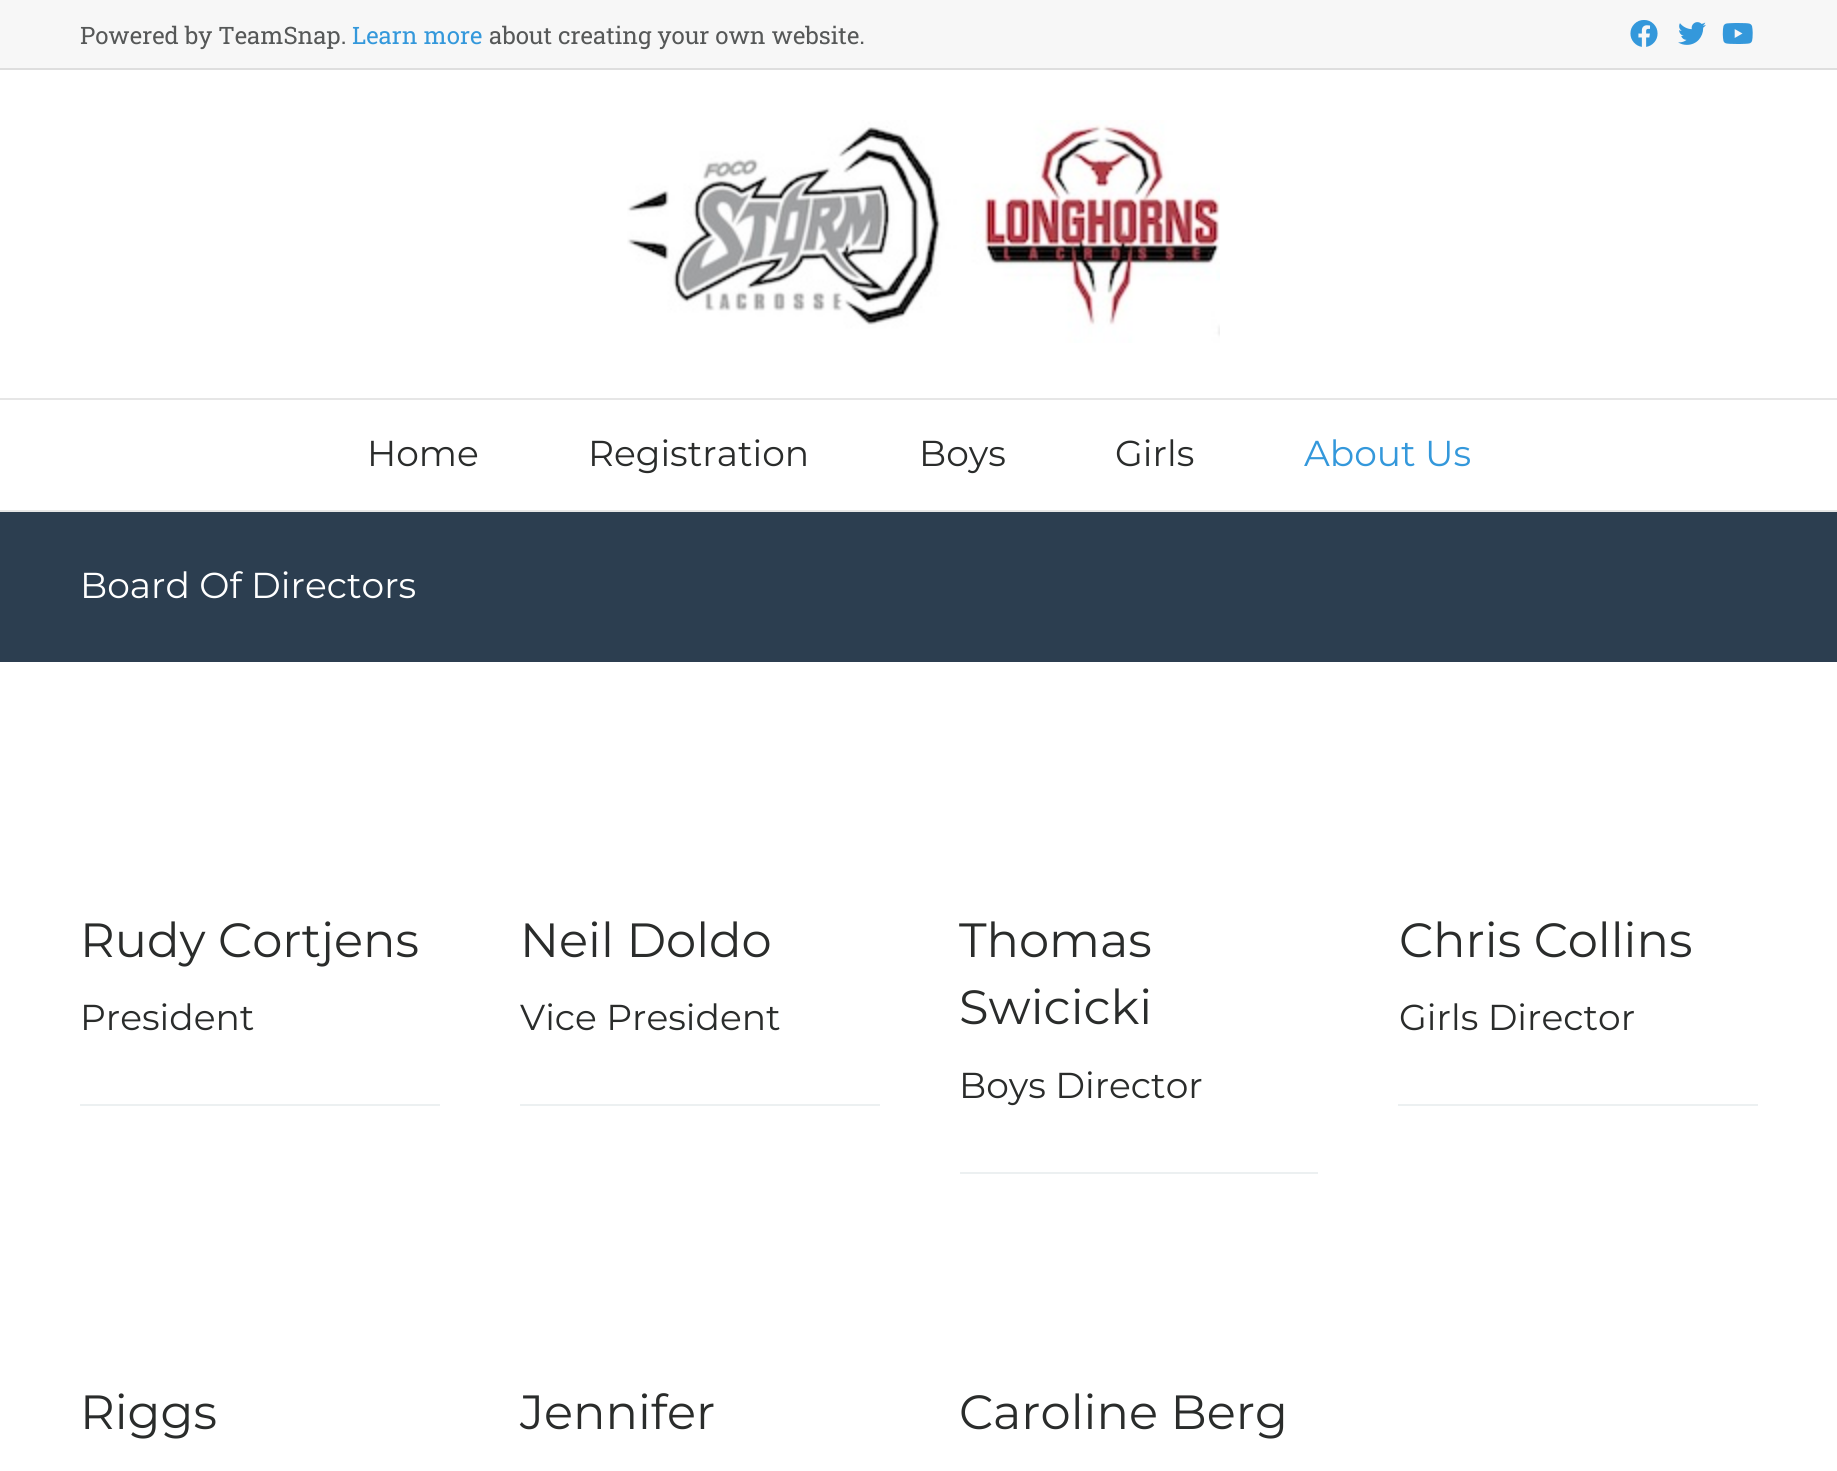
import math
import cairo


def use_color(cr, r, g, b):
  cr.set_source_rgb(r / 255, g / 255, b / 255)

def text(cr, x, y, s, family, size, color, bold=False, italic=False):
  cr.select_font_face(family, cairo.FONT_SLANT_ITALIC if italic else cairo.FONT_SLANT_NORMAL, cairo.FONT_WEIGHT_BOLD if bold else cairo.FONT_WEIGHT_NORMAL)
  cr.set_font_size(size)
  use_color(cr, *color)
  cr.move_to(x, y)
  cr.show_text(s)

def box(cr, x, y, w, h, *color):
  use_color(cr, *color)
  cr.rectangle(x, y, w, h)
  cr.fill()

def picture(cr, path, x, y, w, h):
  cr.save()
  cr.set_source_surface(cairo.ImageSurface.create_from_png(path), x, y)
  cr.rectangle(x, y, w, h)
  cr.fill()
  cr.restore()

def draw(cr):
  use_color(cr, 255, 255, 255)
  cr.paint()
  box(cr, 0, 0, 1837, 68, 247, 247, 247)
  box(cr, 0, 68, 1837, 2, 222, 222, 222)
  picture(cr, "img_01.png", 1630, 20, 28, 27)
  picture(cr, "img_02.png", 1678, 22, 28, 23)
  picture(cr, "img_03.png", 1722, 23, 31, 21)
  picture(cr, "img_04.png", 627, 120, 593, 223)
  box(cr, 0, 398, 1837, 2, 230, 230, 230)
  box(cr, 0, 510, 1837, 2, 230, 230, 230)
  box(cr, 0, 512, 1837, 150, 44, 62, 80)
  box(cr, 80, 1104, 360, 2, 236, 240, 241)
  box(cr, 520, 1104, 360, 2, 236, 240, 241)
  box(cr, 960, 1172, 358, 2, 236, 240, 241)
  box(cr, 1398, 1104, 360, 2, 236, 240, 241)
  text(cr, 80, 44, "Powered by TeamSnap.", "Roboto Slab", 24, (86, 88, 88))
  text(cr, 352, 44, "Learn more", "Roboto Slab", 24, (52, 152, 219))
  text(cr, 489, 44, "about creating your own website.", "Roboto Slab", 24, (86, 88, 88))
  text(cr, 367, 466, "Home", "Montserrat Thin", 36, (42, 44, 43))
  text(cr, 588, 466, "Registration", "Montserrat Thin", 36, (42, 44, 43))
  text(cr, 919, 466, "Boys", "Montserrat Thin", 36, (42, 44, 43))
  text(cr, 1115, 466, "Girls", "Montserrat Thin", 36, (42, 44, 43))
  text(cr, 1304, 466, "About Us", "Montserrat Thin", 36, (52, 152, 219))
  text(cr, 80, 598, "Board Of Directors", "Montserrat Thin", 36, (255, 255, 255))
  text(cr, 80, 957, "Rudy Cortjens", "Montserrat Thin", 48, (42, 44, 43))
  text(cr, 80, 1030, "President", "Montserrat Thin", 36, (42, 44, 43))
  text(cr, 520, 957, "Neil Doldo", "Montserrat Thin", 48, (42, 44, 43))
  text(cr, 520, 1030, "Vice President", "Montserrat Thin", 36, (42, 44, 43))
  text(cr, 959, 957, "Thomas", "Montserrat Thin", 48, (42, 44, 43))
  text(cr, 959, 1024, "Swicicki", "Montserrat Thin", 48, (42, 44, 43))
  text(cr, 959, 1098, "Boys Director", "Montserrat Thin", 36, (42, 44, 43))
  text(cr, 1399, 957, "Chris Collins", "Montserrat Thin", 48, (42, 44, 43))
  text(cr, 1399, 1030, "Girls Director", "Montserrat Thin", 36, (42, 44, 43))
  text(cr, 80, 1429, "Riggs", "Montserrat Thin", 48, (42, 44, 43))
  text(cr, 520, 1429, "Jennifer", "Montserrat Thin", 48, (42, 44, 43))
  text(cr, 959, 1429, "Caroline Berg", "Montserrat Thin", 48, (42, 44, 43))


surface = cairo.ImageSurface(cairo.FORMAT_RGB24, 1837, 1471)
cr = cairo.Context(surface)
options = cairo.FontOptions()
options.set_hint_metrics(cairo.HINT_METRICS_OFF)
options.set_hint_style(cairo.HINT_STYLE_NONE)
cr.set_font_options(options)
cr.set_miter_limit(4)
draw(cr)
surface.write_to_png("out.png")
